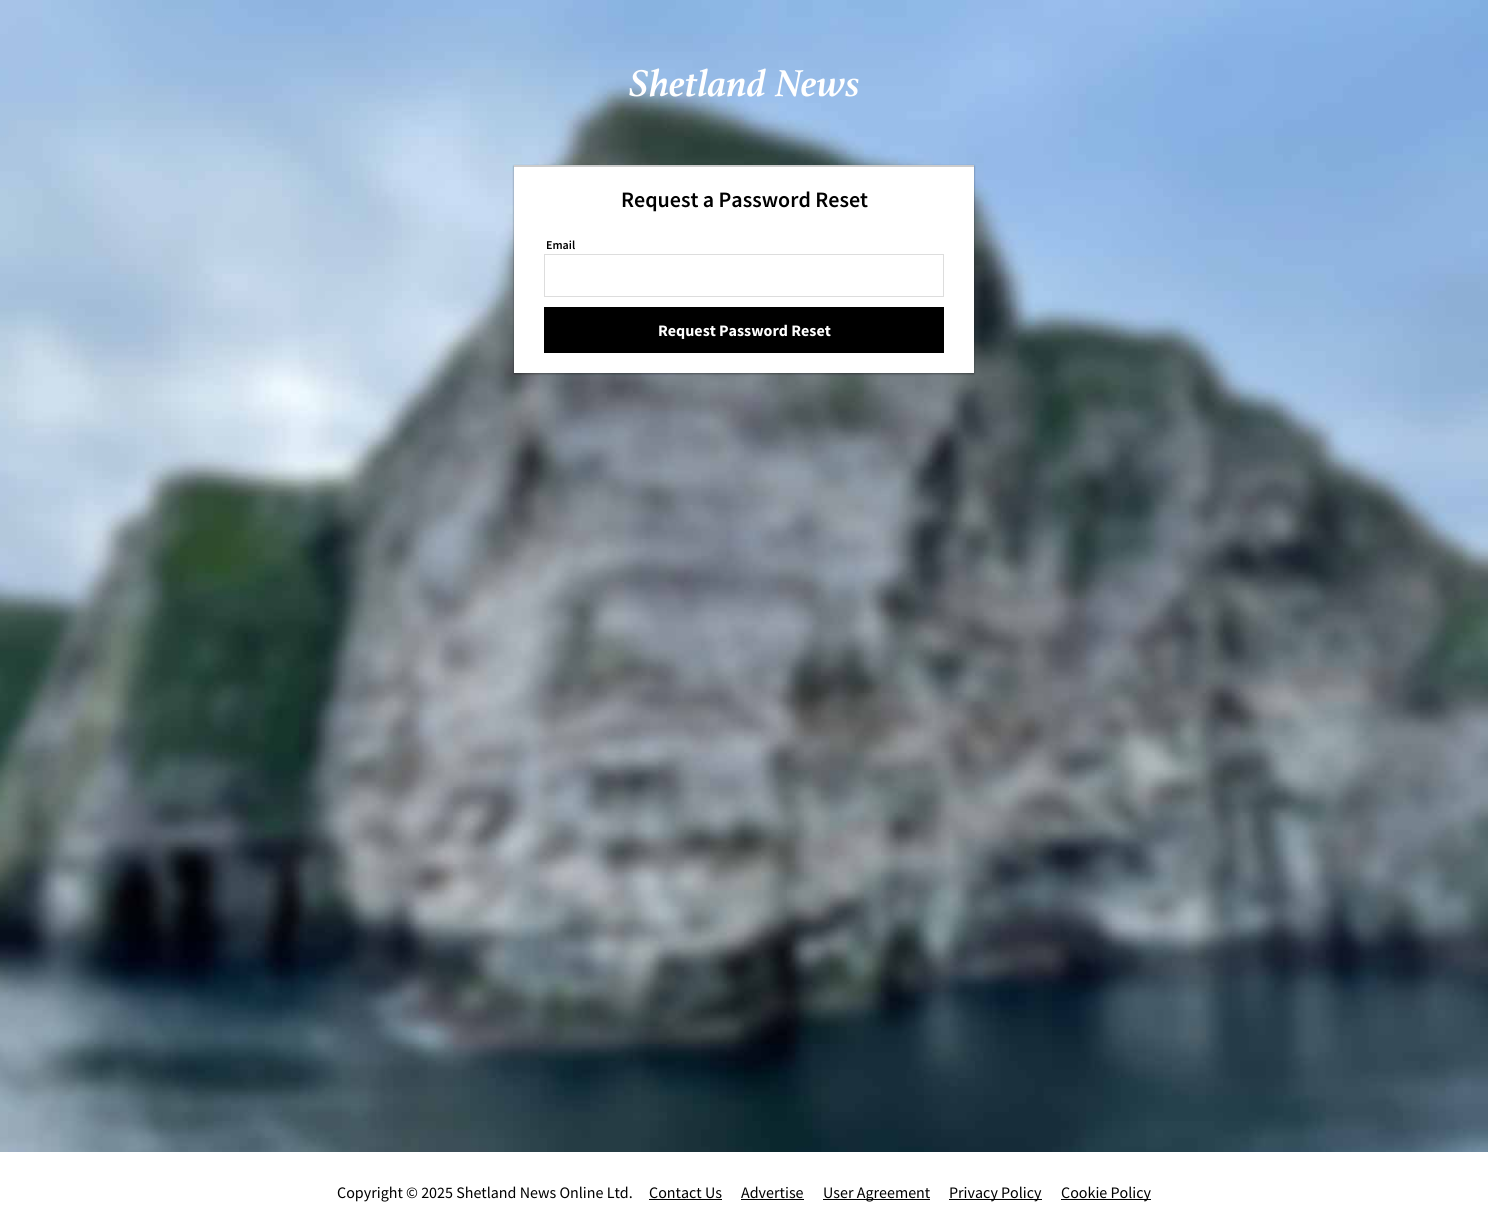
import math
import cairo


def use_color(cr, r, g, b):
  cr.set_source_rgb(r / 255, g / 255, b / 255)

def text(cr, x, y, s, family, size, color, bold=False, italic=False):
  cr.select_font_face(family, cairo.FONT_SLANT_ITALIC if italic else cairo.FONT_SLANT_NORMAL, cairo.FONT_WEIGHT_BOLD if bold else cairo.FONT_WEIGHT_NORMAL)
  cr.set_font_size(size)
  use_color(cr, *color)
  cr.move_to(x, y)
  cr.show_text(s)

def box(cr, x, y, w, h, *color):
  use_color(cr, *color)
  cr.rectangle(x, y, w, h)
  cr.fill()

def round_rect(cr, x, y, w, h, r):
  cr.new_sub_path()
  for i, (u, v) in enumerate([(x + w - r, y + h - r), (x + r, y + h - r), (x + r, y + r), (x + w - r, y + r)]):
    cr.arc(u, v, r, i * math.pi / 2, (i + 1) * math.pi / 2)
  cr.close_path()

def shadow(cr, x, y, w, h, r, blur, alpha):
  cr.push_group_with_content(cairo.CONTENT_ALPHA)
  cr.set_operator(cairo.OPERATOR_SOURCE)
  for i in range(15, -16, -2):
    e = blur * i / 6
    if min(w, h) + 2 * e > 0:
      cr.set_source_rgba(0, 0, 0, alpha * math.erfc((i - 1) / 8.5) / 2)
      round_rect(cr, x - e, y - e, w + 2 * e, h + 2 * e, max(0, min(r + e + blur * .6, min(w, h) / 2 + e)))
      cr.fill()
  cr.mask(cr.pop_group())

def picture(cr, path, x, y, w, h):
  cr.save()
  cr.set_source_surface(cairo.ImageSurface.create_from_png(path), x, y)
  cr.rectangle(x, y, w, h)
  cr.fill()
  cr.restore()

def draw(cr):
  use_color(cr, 255, 255, 255)
  cr.paint()
  picture(cr, "img_01.png", 0, 0, 1488, 1152)
  picture(cr, "img_02.png", 629, 68, 230, 29)
  use_color(cr, 0, 0, 0)
  shadow(cr, 514, 166, 460, 208, 0, 1, 0.4)
  box(cr, 514, 167, 460, 206, 255, 255, 255)
  box(cr, 514, 165, 460, 2, 204, 204, 204)
  cr.rectangle(544.5, 254.5, 399, 42)
  use_color(cr, 221, 221, 221)
  cr.set_line_width(1)
  cr.stroke()
  box(cr, 544, 307, 400, 46, 0, 0, 0)
  box(cr, 649, 1199, 73, 1, 0, 0, 0)
  box(cr, 741, 1199, 63, 1, 0, 0, 0)
  box(cr, 823, 1199, 107, 1, 0, 0, 0)
  box(cr, 949, 1199, 93, 1, 0, 0, 0)
  box(cr, 1061, 1199, 90, 1, 0, 0, 0)
  text(cr, 621, 207, "Request a Password Reset", "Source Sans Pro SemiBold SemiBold", 22, (0, 0, 0))
  text(cr, 546, 249, "Email", "Source Sans Pro SemiBold SemiBold", 12, (0, 0, 0))
  text(cr, 658, 336, "Request Password Reset", "Source Sans Pro", 16, (255, 255, 255), bold=True)
  text(cr, 337, 1198, "Copyright © 2025 Shetland News Online Ltd.", "Source Sans Pro", 16, (0, 0, 0))
  text(cr, 649, 1198, "Contact Us", "Source Sans Pro", 16, (0, 0, 0))
  text(cr, 741, 1198, "Advertise", "Source Sans Pro", 16, (0, 0, 0))
  text(cr, 823, 1198, "User Agreement", "Source Sans Pro", 16, (0, 0, 0))
  text(cr, 949, 1198, "Privacy Policy", "Source Sans Pro", 16, (0, 0, 0))
  text(cr, 1061, 1198, "Cookie Policy", "Source Sans Pro", 16, (0, 0, 0))


surface = cairo.ImageSurface(cairo.FORMAT_RGB24, 1488, 1232)
cr = cairo.Context(surface)
options = cairo.FontOptions()
options.set_hint_metrics(cairo.HINT_METRICS_OFF)
options.set_hint_style(cairo.HINT_STYLE_NONE)
cr.set_font_options(options)
cr.set_miter_limit(4)
draw(cr)
surface.write_to_png("out.png")
